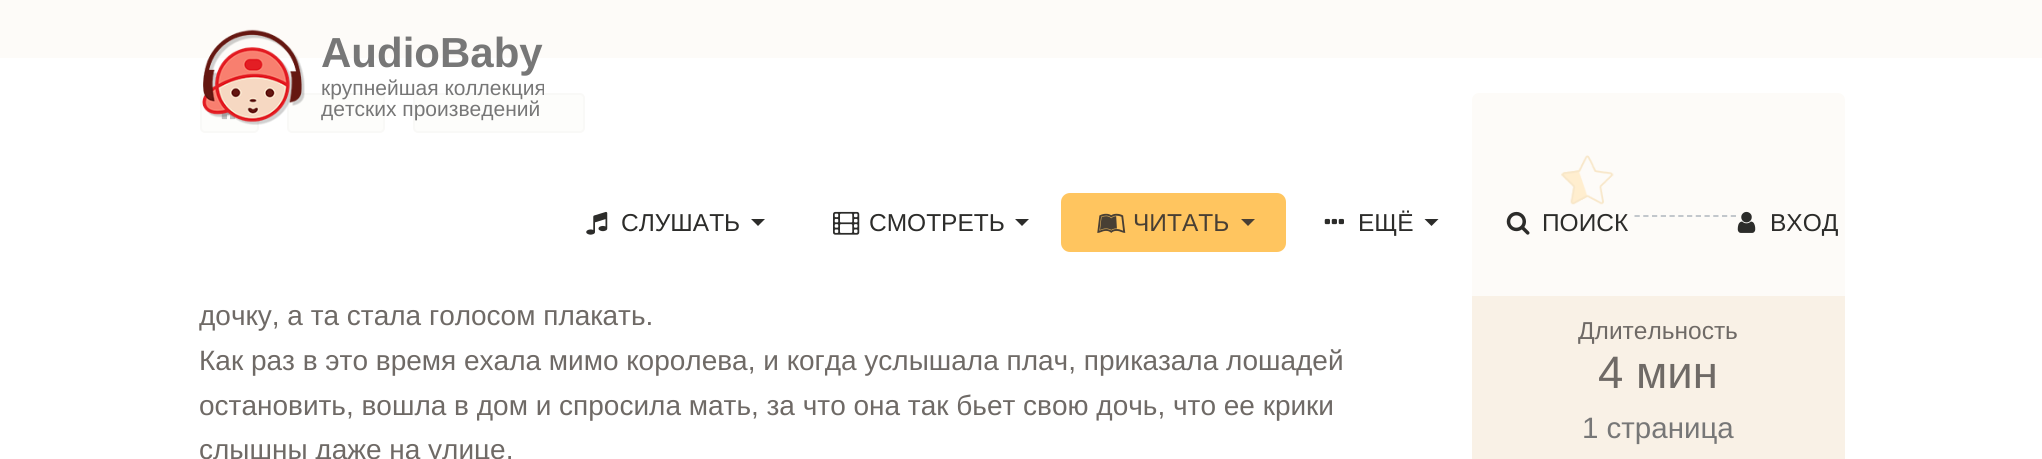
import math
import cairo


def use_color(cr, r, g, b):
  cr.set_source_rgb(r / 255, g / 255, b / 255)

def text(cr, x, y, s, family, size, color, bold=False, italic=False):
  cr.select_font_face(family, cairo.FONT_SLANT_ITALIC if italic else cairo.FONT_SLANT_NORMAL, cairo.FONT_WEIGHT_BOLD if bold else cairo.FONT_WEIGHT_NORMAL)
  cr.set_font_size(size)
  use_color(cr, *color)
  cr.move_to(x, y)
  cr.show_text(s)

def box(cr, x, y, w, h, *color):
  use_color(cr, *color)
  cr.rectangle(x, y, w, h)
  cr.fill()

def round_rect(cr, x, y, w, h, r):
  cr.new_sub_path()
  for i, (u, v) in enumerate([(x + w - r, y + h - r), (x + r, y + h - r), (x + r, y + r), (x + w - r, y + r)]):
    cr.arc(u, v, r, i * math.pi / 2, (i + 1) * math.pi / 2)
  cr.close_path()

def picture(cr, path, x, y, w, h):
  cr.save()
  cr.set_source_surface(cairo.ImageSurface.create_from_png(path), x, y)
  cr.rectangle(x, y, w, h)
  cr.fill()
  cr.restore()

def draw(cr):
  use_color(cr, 255, 255, 255)
  cr.paint()
  box(cr, 0, 0, 2042, 58, 249, 241, 230)
  use_color(cr, 248, 247, 243)
  round_rect(cr, 201, 94, 57, 38, 4)
  cr.fill_preserve()
  use_color(cr, 236, 234, 228)
  cr.stroke()
  picture(cr, "img_08.png", 221, 105, 15, 15)
  use_color(cr, 248, 247, 243)
  round_rect(cr, 288, 94, 96, 38, 4)
  cr.fill_preserve()
  use_color(cr, 236, 234, 228)
  cr.stroke()
  use_color(cr, 248, 247, 243)
  round_rect(cr, 414, 94, 170, 38, 4)
  cr.fill_preserve()
  use_color(cr, 236, 234, 228)
  cr.stroke()
  use_color(cr, 249, 241, 230)
  round_rect(cr, 1472, 93, 373, 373, 7)
  cr.fill()
  picture(cr, "img_09.png", 1561, 155, 53, 50)
  cr.new_path()
  cr.move_to(1634.5, 216)
  cr.line_to(1736, 216)
  use_color(cr, 30, 47, 69)
  cr.set_line_width(1.8)
  cr.set_dash([5.25, 3.5])
  cr.stroke()
  cr.set_source_rgba(1, 1, 1, 0.7)
  cr.rectangle(0, 0, 2042, 296)
  cr.fill()
  picture(cr, "img_01.png", 202, 29, 103, 96)
  picture(cr, "img_02.png", 586, 211, 22, 24)
  use_color(cr, 44, 44, 42)
  cr.new_path()
  cr.move_to(751, 219)
  cr.line_to(765, 219)
  cr.line_to(758, 226)
  cr.close_path()
  cr.fill()
  picture(cr, "img_03.png", 833, 211, 27, 24)
  cr.new_path()
  cr.move_to(1015, 219)
  cr.line_to(1029, 219)
  cr.line_to(1022, 226)
  cr.close_path()
  cr.fill()
  use_color(cr, 255, 197, 95)
  round_rect(cr, 1061, 193, 225, 59, 9)
  cr.fill()
  picture(cr, "img_04.png", 1097, 213, 29, 20)
  use_color(cr, 72, 63, 52)
  cr.new_path()
  cr.move_to(1241, 219)
  cr.line_to(1255, 219)
  cr.line_to(1248, 226)
  cr.close_path()
  cr.fill()
  picture(cr, "img_05.png", 1324, 218, 20, 7)
  use_color(cr, 44, 44, 42)
  cr.new_path()
  cr.move_to(1424.5, 219)
  cr.line_to(1438.5, 219)
  cr.line_to(1431.5, 226)
  cr.close_path()
  cr.fill()
  picture(cr, "img_06.png", 1506, 211, 24, 24)
  picture(cr, "img_07.png", 1737, 211, 19, 22)
  text(cr, 321, 67, "AudioBaby", "Liberation Sans", 42, (119, 119, 119), bold=True)
  text(cr, 321, 95, "крупнейшая коллекция", "Liberation Sans", 21, (119, 119, 119))
  text(cr, 321, 116, "детских произведений", "Liberation Sans", 21, (119, 119, 119))
  text(cr, 621, 231, "СЛУШАТЬ", "Liberation Sans", 24.5, (44, 44, 42))
  text(cr, 869, 231, "СМОТРЕТЬ", "Liberation Sans", 24.5, (44, 44, 42))
  text(cr, 1133, 231, "ЧИТАТЬ", "Liberation Sans", 24.5, (72, 63, 52))
  text(cr, 1358, 231, "ЕЩЁ", "Liberation Sans", 24.5, (44, 44, 42))
  text(cr, 1542, 231, "ПОИСК", "Liberation Sans", 24.5, (44, 44, 42))
  text(cr, 1770, 231, "ВХОД", "Liberation Sans", 24.5, (44, 44, 42))
  text(cr, 199, 325, "дочку, а та стала голосом плакать.", "Liberation Sans", 28, (111, 106, 102))
  text(cr, 199, 370, "Как раз в это время ехала мимо королева, и когда услышала плач, приказала лошадей", "Liberation Sans", 28, (111, 106, 102))
  text(cr, 199, 415, "остановить, вошла в дом и спросила мать, за что она так бьет свою дочь, что ее крики", "Liberation Sans", 28, (111, 106, 102))
  text(cr, 199, 459, "слышны даже на улице.", "Liberation Sans", 28, (111, 106, 102))
  text(cr, 1578, 339, "Длительность", "Liberation Sans", 24.5, (111, 106, 102))
  text(cr, 1598, 388, "4 мин", "Liberation Sans", 45.5, (111, 106, 102))
  text(cr, 1582, 438, "1 страница", "Liberation Sans", 29.5, (119, 119, 119))


surface = cairo.ImageSurface(cairo.FORMAT_RGB24, 2042, 459)
cr = cairo.Context(surface)
options = cairo.FontOptions()
options.set_hint_metrics(cairo.HINT_METRICS_OFF)
options.set_hint_style(cairo.HINT_STYLE_NONE)
cr.set_font_options(options)
cr.set_miter_limit(4)
draw(cr)
surface.write_to_png("out.png")
